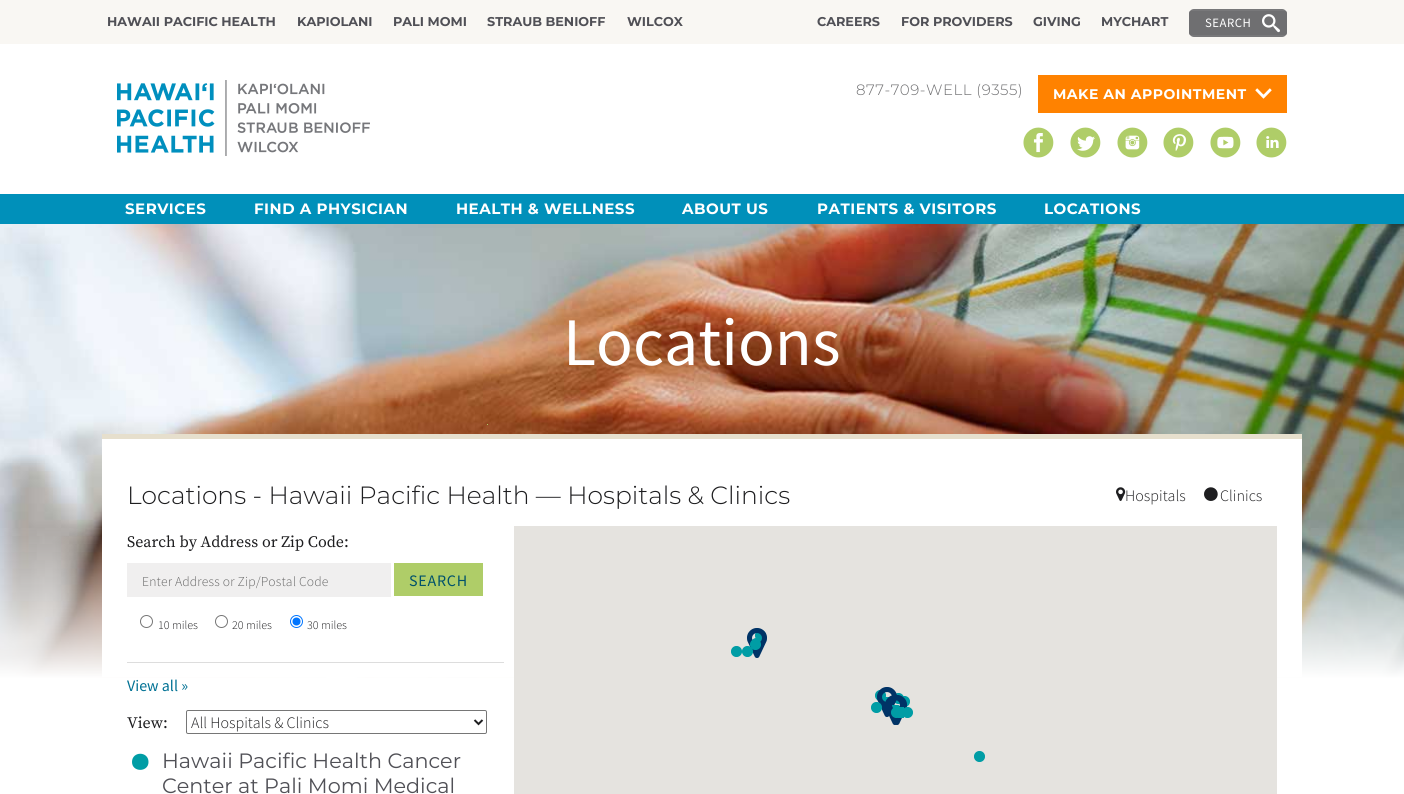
import math
import cairo


def use_color(cr, r, g, b):
  cr.set_source_rgb(r / 255, g / 255, b / 255)

def text(cr, x, y, s, family, size, color, bold=False, italic=False):
  cr.select_font_face(family, cairo.FONT_SLANT_ITALIC if italic else cairo.FONT_SLANT_NORMAL, cairo.FONT_WEIGHT_BOLD if bold else cairo.FONT_WEIGHT_NORMAL)
  cr.set_font_size(size)
  use_color(cr, *color)
  cr.move_to(x, y)
  cr.show_text(s)

def spaced_text(cr, x, y, s, letter, word):
  cr.move_to(x, y)
  for ch in s:
    cr.show_text(ch)
    cr.rel_move_to(letter + word * (ch == ' '), 0)

def box(cr, x, y, w, h, *color):
  use_color(cr, *color)
  cr.rectangle(x, y, w, h)
  cr.fill()

def round_rect(cr, x, y, w, h, r):
  cr.new_sub_path()
  for i, (u, v) in enumerate([(x + w - r, y + h - r), (x + r, y + h - r), (x + r, y + r), (x + w - r, y + r)]):
    cr.arc(u, v, r, i * math.pi / 2, (i + 1) * math.pi / 2)
  cr.close_path()

def picture(cr, path, x, y, w, h):
  cr.save()
  cr.set_source_surface(cairo.ImageSurface.create_from_png(path), x, y)
  cr.rectangle(x, y, w, h)
  cr.fill()
  cr.restore()

def draw(cr):
  use_color(cr, 255, 255, 255)
  cr.paint()
  box(cr, 0, 0, 1404, 44, 249, 247, 243)
  use_color(cr, 120, 120, 122)
  round_rect(cr, 1189, 9, 98, 28, 5)
  cr.fill()
  cr.save()
  round_rect(cr, 1189, 9, 98, 28, 5)
  cr.clip()
  box(cr, 1189, 11, 98, 24, 111, 111, 113)
  cr.restore()
  picture(cr, "img_01.png", 1262, 14, 18, 19)
  picture(cr, "img_02.png", 117, 80, 253, 76)
  box(cr, 1038, 75, 249, 38, 255, 130, 0)
  picture(cr, "img_03.png", 1255, 88, 17, 11)
  picture(cr, "img_04.png", 1023, 127, 31, 31)
  picture(cr, "img_05.png", 1070, 127, 31, 31)
  picture(cr, "img_06.png", 1117, 127, 31, 31)
  picture(cr, "img_07.png", 1163, 127, 31, 31)
  picture(cr, "img_08.png", 1210, 127, 31, 31)
  picture(cr, "img_09.png", 1256, 127, 31, 31)
  box(cr, 0, 194, 1404, 30, 0, 144, 186)
  picture(cr, "img_10.png", 0, 224, 1404, 454)
  gradient = cairo.LinearGradient(702, 179, 702, 679)
  gradient.add_color_stop_rgba(0.69, 1, 1, 1, 0)
  gradient.add_color_stop_rgba(0.7, 1, 1, 1, 0.03)
  gradient.add_color_stop_rgba(1, 1, 1, 1, 1)
  cr.set_source(gradient)
  cr.rectangle(0, 528, 1404, 150)
  cr.fill()
  box(cr, 102, 439, 1200, 238, 255, 255, 255)
  box(cr, 102, 434, 1200, 5, 230, 223, 205)
  picture(cr, "img_11.png", 1116, 487, 10, 14)
  picture(cr, "img_12.png", 1204, 487, 14, 14)
  box(cr, 127, 563, 264, 34, 240, 239, 239)
  box(cr, 394, 563, 89, 33, 175, 205, 104)
  cr.arc(146.5, 621.5, 6, 0, 2 * math.pi)
  use_color(cr, 118, 118, 118)
  cr.set_line_width(1)
  cr.stroke()
  cr.arc(221.5, 621.5, 6, 0, 2 * math.pi)
  cr.stroke()
  cr.arc(296.5, 621.5, 6, 0, 2 * math.pi)
  use_color(cr, 0, 117, 255)
  cr.stroke()
  cr.arc(296.5, 621.5, 4, 0, 2 * math.pi)
  cr.fill()
  box(cr, 127, 662, 377, 1, 221, 221, 221)
  box(cr, 487, 424, 1, 1, 175, 205, 104)
  round_rect(cr, 186.5, 710.5, 300, 23, 1.5)
  use_color(cr, 118, 118, 118)
  cr.stroke()
  cr.new_path()
  cr.move_to(474.5, 720)
  cr.line_to(478.5, 724)
  cr.line_to(482.5, 720)
  use_color(cr, 30, 30, 32)
  cr.set_line_width(2)
  cr.stroke()
  box(cr, 514, 526, 763, 268, 229, 227, 223)
  picture(cr, "img_14.png", 755, 630, 11, 11)
  picture(cr, "img_15.png", 752, 638, 10, 4)
  picture(cr, "img_13.png", 747, 628, 20, 30)
  picture(cr, "img_16.png", 750, 639, 11, 11)
  picture(cr, "img_14.png", 731, 646, 11, 11)
  picture(cr, "img_17.png", 742, 646, 11, 11)
  picture(cr, "img_14.png", 875, 690, 11, 11)
  picture(cr, "img_19.png", 895, 693, 9, 11)
  picture(cr, "img_22.png", 882, 697, 7, 3)
  picture(cr, "img_24.png", 882, 697, 7, 3)
  picture(cr, "img_25.png", 882, 697, 7, 3)
  picture(cr, "img_26.png", 882, 697, 7, 3)
  picture(cr, "img_27.png", 882, 697, 7, 5)
  picture(cr, "img_18.png", 877, 687, 20, 30)
  picture(cr, "img_23.png", 899, 696, 11, 11)
  picture(cr, "img_34.png", 893, 705, 7, 2)
  picture(cr, "img_29.png", 892, 705, 7, 1)
  picture(cr, "img_35.png", 893, 705, 7, 3)
  picture(cr, "img_30.png", 892, 705, 2, 4)
  picture(cr, "img_31.png", 892, 705, 1, 1)
  picture(cr, "img_32.png", 892, 705, 1, 1)
  picture(cr, "img_33.png", 892, 705, 1, 3)
  picture(cr, "img_21.png", 890, 695, 17, 30)
  picture(cr, "img_20.png", 885, 695, 17, 30)
  picture(cr, "img_28.png", 871, 702, 11, 11)
  picture(cr, "img_36.png", 891, 707, 7, 11)
  box(cr, 898, 707, 6, 11, 0, 157, 165)
  picture(cr, "img_37.png", 904, 707, 9, 11)
  picture(cr, "img_14.png", 974, 751, 11, 11)
  cr.new_path()
  cr.move_to(132, 762)
  cr.curve_to(132, 751, 148.5, 751, 148.5, 762)
  cr.curve_to(148.5, 772.5, 132, 772.5, 132, 762)
  cr.close_path()
  cr.fill()
  text(cr, 107, 26, "HAWAII PACIFIC HEALTH", "Montserrat", 12.75, (80, 80, 86), bold=True)
  text(cr, 297, 26, "KAPIOLANI", "Montserrat", 12.75, (80, 80, 86), bold=True)
  text(cr, 393, 26, "PALI MOMI", "Montserrat", 12.75, (80, 80, 86), bold=True)
  text(cr, 487, 26, "STRAUB BENIOFF", "Montserrat", 12.75, (80, 80, 86), bold=True)
  text(cr, 627, 26, "WILCOX", "Montserrat", 12.75, (80, 80, 86), bold=True)
  text(cr, 817, 26, "CAREERS", "Montserrat", 12.75, (80, 80, 86), bold=True)
  text(cr, 901, 26, "FOR PROVIDERS", "Montserrat", 12.75, (80, 80, 86), bold=True)
  text(cr, 1033, 26, "GIVING", "Montserrat", 12.75, (80, 80, 86), bold=True)
  text(cr, 1101, 26, "MYCHART", "Montserrat", 12.75, (80, 80, 86), bold=True)
  cr.select_font_face("Source Sans Pro")
  use_color(cr, 255, 255, 255)
  spaced_text(cr, 1205, 27, "SEARCH", 0.5, 0)
  cr.select_font_face("Montserrat Light")
  cr.set_font_size(15)
  use_color(cr, 111, 111, 113)
  spaced_text(cr, 856, 95, "877-709-WELL (9355)", 0.5, 0)
  cr.select_font_face("Montserrat", cairo.FONT_SLANT_NORMAL, cairo.FONT_WEIGHT_BOLD)
  cr.set_font_size(14)
  use_color(cr, 255, 255, 255)
  spaced_text(cr, 1053, 99, "MAKE AN APPOINTMENT", 0.5, 0)
  cr.set_font_size(15)
  spaced_text(cr, 125, 214, "SERVICES", 0.5, 0)
  spaced_text(cr, 254, 214, "FIND A PHYSICIAN", 0.5, 0)
  spaced_text(cr, 456, 214, "HEALTH & WELLNESS", 0.5, 0)
  spaced_text(cr, 682, 214, "ABOUT US", 0.5, 0)
  spaced_text(cr, 817, 214, "PATIENTS & VISITORS", 0.5, 0)
  spaced_text(cr, 1044, 214, "LOCATIONS", 0.5, 0)
  text(cr, 563, 365, "Locations", "Source Sans Pro", 68, (255, 255, 255))
  text(cr, 127, 504, "Locations - Hawaii Pacific Health — Hospitals & Clinics", "Montserrat Light", 24.95, (30, 30, 32))
  text(cr, 1125, 501, "Hospitals", "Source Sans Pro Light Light", 16, (30, 30, 32))
  text(cr, 1220, 501, "Clinics", "Source Sans Pro Light Light", 16, (30, 30, 32))
  text(cr, 127, 547, "Search by Address or Zip Code:", "Source Serif Pro", 16, (30, 30, 32))
  cr.select_font_face("Source Sans Pro Light Light")
  cr.set_font_size(13.6)
  use_color(cr, 102, 102, 102)
  spaced_text(cr, 142, 586, "Enter Address or Zip/Postal Code", 0.15, 0)
  cr.select_font_face("Source Sans Pro")
  cr.set_font_size(16)
  use_color(cr, 0, 82, 107)
  spaced_text(cr, 409, 586, "SEARCH", 0.75, 0)
  text(cr, 158, 629, "10 miles", "Source Sans Pro Light Light", 12, (30, 30, 32))
  text(cr, 232, 629, "20 miles", "Source Sans Pro Light Light", 12, (30, 30, 32))
  text(cr, 307, 629, "30 miles", "Source Sans Pro Light Light", 12, (30, 30, 32))
  text(cr, 127, 691, "View all »", "Source Sans Pro", 16, (0, 113, 148))
  text(cr, 127, 728, "View:", "Source Serif Pro", 16, (30, 30, 32))
  text(cr, 191, 728, "All Hospitals & Clinics", "Source Sans Pro Light Light", 16, (30, 30, 32))
  text(cr, 162, 768, "Hawaii Pacific Health Cancer", "Montserrat", 20.75, (80, 80, 86))
  text(cr, 162, 793, "Center at Pali Momi Medical", "Montserrat", 20.75, (80, 80, 86))


surface = cairo.ImageSurface(cairo.FORMAT_RGB24, 1404, 794)
cr = cairo.Context(surface)
options = cairo.FontOptions()
options.set_hint_metrics(cairo.HINT_METRICS_OFF)
options.set_hint_style(cairo.HINT_STYLE_NONE)
cr.set_font_options(options)
cr.set_miter_limit(4)
draw(cr)
surface.write_to_png("out.png")
